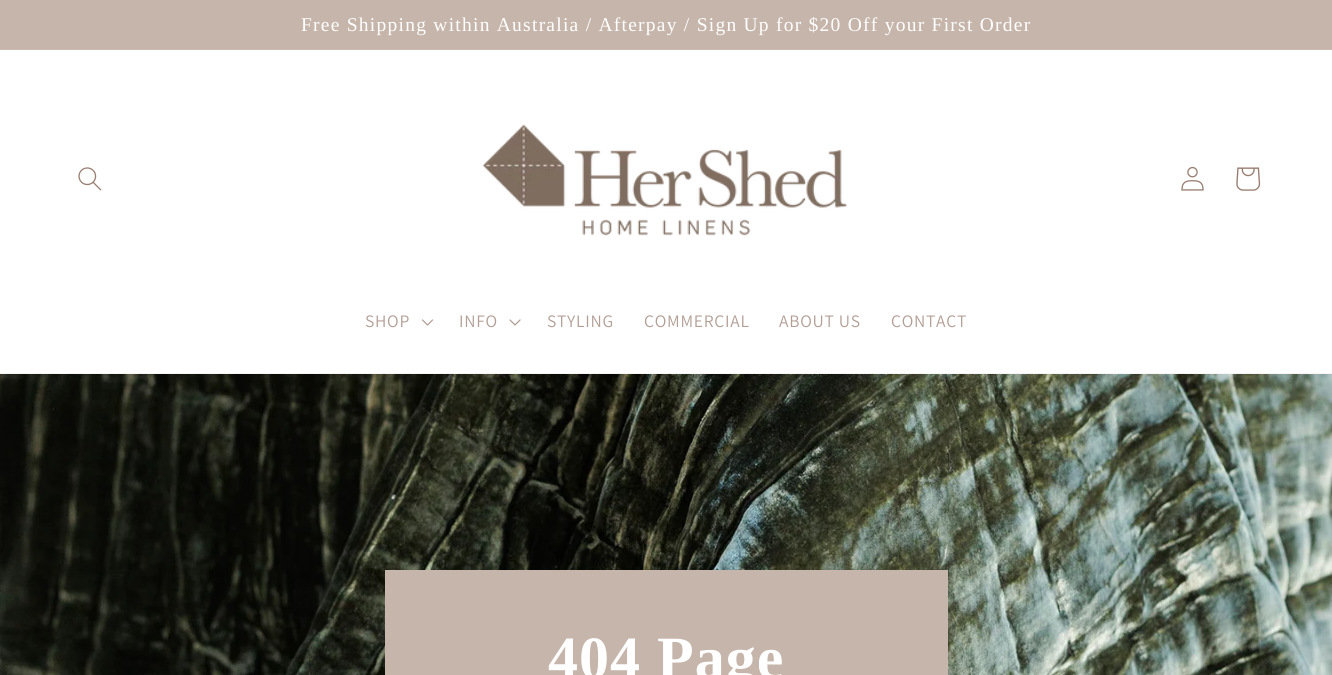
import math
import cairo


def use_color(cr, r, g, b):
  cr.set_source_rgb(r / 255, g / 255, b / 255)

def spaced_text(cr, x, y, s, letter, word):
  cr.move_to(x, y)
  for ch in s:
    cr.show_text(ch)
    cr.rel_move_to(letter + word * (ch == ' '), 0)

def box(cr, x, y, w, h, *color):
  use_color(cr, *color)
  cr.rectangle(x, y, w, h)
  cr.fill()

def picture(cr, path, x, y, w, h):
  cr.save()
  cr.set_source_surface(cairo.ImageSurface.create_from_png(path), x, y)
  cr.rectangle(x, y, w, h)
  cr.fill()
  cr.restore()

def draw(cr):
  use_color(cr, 255, 255, 255)
  cr.paint()
  box(cr, 0, 0, 1332, 49, 198, 181, 170)
  box(cr, 0, 49, 1332, 1, 203, 187, 177)
  box(cr, 0, 373, 1332, 1, 247, 245, 244)
  picture(cr, "img_01.png", 78, 167, 24, 24)
  picture(cr, "img_02.png", 482, 124, 365, 112)
  picture(cr, "img_03.png", 1181, 166, 23, 25)
  picture(cr, "img_04.png", 1236, 167, 25, 24)
  picture(cr, "img_05.png", 422, 319, 11, 7)
  picture(cr, "img_06.png", 509, 319, 12, 7)
  picture(cr, "img_07.png", 0, 374, 1332, 301)
  box(cr, 385, 570, 563, 105, 198, 181, 170)
  cr.select_font_face("Liberation Serif")
  cr.set_font_size(19.5)
  use_color(cr, 255, 255, 255)
  spaced_text(cr, 301, 31, "Free Shipping within Australia / Afterpay / Sign Up for $20 Off your First Order", 1.25, 0)
  cr.select_font_face("Assistant")
  cr.set_font_size(17.5)
  use_color(cr, 178, 158, 149)
  spaced_text(cr, 365, 327, "SHOP", 0.75, 0)
  spaced_text(cr, 459, 327, "INFO", 0.75, 0)
  spaced_text(cr, 547, 327, "STYLING", 0.75, 0)
  spaced_text(cr, 644, 327, "COMMERCIAL", 0.75, 0)
  spaced_text(cr, 779, 327, "ABOUT US", 0.75, 0)
  spaced_text(cr, 891, 327, "CONTACT", 0.75, 0)
  cr.select_font_face("Liberation Serif", cairo.FONT_SLANT_NORMAL, cairo.FONT_WEIGHT_BOLD)
  cr.set_font_size(60)
  use_color(cr, 255, 255, 255)
  spaced_text(cr, 548, 678, "404 Page", 1, 0)


surface = cairo.ImageSurface(cairo.FORMAT_RGB24, 1332, 675)
cr = cairo.Context(surface)
options = cairo.FontOptions()
options.set_hint_metrics(cairo.HINT_METRICS_OFF)
options.set_hint_style(cairo.HINT_STYLE_NONE)
cr.set_font_options(options)
cr.set_miter_limit(4)
draw(cr)
surface.write_to_png("out.png")
